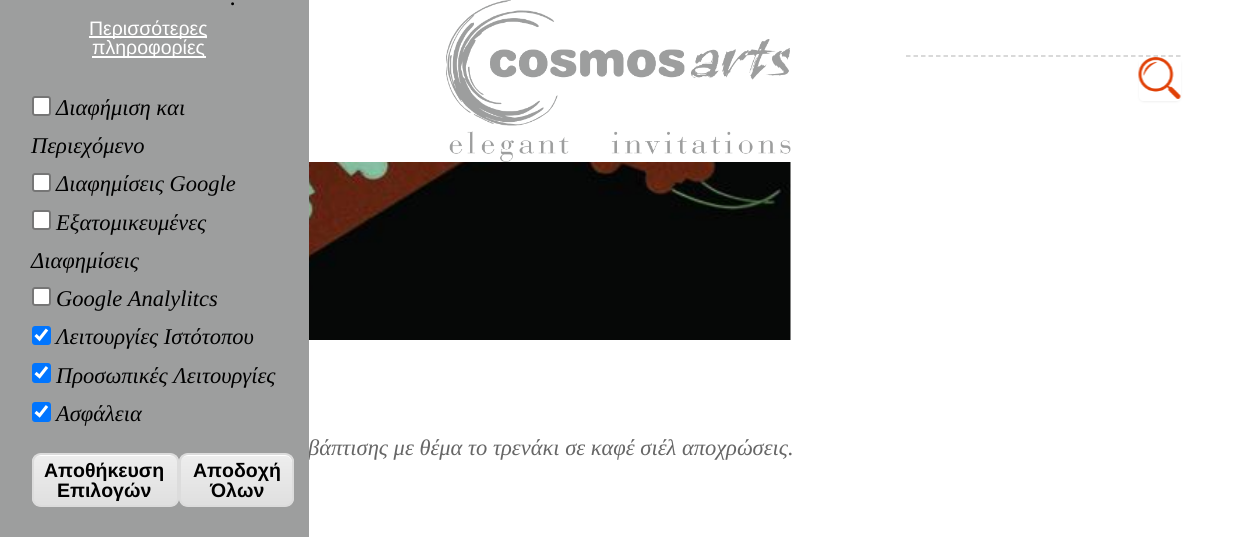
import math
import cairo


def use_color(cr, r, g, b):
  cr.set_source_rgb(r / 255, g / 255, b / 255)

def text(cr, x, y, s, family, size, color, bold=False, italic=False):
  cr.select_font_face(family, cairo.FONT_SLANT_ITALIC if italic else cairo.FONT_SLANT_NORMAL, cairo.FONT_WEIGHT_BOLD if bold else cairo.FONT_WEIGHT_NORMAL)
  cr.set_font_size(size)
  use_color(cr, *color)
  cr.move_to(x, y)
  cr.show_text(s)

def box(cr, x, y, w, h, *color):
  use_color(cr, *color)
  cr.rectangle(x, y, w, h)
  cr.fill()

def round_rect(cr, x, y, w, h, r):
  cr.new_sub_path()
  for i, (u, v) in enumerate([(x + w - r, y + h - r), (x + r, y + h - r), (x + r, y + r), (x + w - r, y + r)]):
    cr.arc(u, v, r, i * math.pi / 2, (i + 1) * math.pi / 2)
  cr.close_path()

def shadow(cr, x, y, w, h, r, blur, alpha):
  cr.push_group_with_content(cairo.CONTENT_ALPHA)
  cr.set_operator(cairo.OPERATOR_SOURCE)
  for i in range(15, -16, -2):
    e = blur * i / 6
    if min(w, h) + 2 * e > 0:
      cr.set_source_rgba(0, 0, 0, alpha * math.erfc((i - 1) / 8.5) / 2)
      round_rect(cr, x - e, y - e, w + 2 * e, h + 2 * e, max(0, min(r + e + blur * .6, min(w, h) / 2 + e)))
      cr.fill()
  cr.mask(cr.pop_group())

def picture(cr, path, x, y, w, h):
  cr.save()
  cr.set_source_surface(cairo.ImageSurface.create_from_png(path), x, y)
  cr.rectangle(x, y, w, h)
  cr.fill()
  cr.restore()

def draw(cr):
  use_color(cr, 255, 255, 255)
  cr.paint()
  picture(cr, "img_01.png", 446, 0, 345, 162)
  cr.new_path()
  cr.move_to(906, 56)
  cr.line_to(1180.5, 56)
  use_color(cr, 204, 204, 204)
  cr.set_line_width(1.5)
  cr.set_dash([4.5, 3])
  cr.stroke()
  cr.save()
  cr.set_fill_rule(cairo.FILL_RULE_EVEN_ODD)
  cr.new_path()
  cr.move_to(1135, 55)
  cr.line_to(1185, 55)
  cr.line_to(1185, 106)
  cr.line_to(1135, 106)
  cr.close_path()
  cr.move_to(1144, 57)
  cr.line_to(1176, 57)
  cr.curve_to(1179, 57, 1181, 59, 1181, 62)
  cr.line_to(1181, 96)
  cr.curve_to(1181, 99, 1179, 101, 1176, 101)
  cr.line_to(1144, 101)
  cr.curve_to(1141, 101, 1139, 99, 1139, 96)
  cr.line_to(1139, 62)
  cr.curve_to(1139, 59, 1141, 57, 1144, 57)
  cr.close_path()
  cr.clip()
  use_color(cr, 180, 180, 180)
  shadow(cr, 1139, 59, 42, 43, 5, 1, 0.2)
  cr.restore()
  picture(cr, "img_02.png", 1138, 57, 43, 42)
  picture(cr, "img_03.png", 309, 162, 482, 178)
  text(cr, 308, 455, "βάπτισης με θέμα το τρενάκι σε καφέ σιέλ αποχρώσεις.", "Liberation Serif", 22.5, (102, 102, 102), italic=True)
  box(cr, 0, 0, 309, 537, 157, 158, 158)
  text(cr, 56, 421, "Ασφάλεια", "Liberation Serif", 22.5, (0, 0, 0), italic=True)
  use_color(cr, 0, 117, 255)
  round_rect(cr, 32, 402, 19, 20, 3)
  cr.fill()
  cr.new_path()
  cr.move_to(35.5, 412)
  cr.line_to(39.5, 415.5)
  cr.line_to(47, 406)
  use_color(cr, 255, 255, 255)
  cr.set_line_width(3.1)
  cr.set_dash([])
  cr.stroke()
  text(cr, 56, 383, "Προσωπικές Λειτουργίες", "Liberation Serif", 22.5, (0, 0, 0), italic=True)
  use_color(cr, 0, 117, 255)
  round_rect(cr, 32, 363, 19, 20, 3)
  cr.fill()
  cr.new_path()
  cr.move_to(35.5, 373)
  cr.line_to(39.5, 376.5)
  cr.line_to(47, 367)
  use_color(cr, 255, 255, 255)
  cr.stroke()
  text(cr, 56, 344, "Λειτουργίες Ιστότοπου", "Liberation Serif", 22.5, (0, 0, 0), italic=True)
  use_color(cr, 0, 117, 255)
  round_rect(cr, 32, 326, 19, 19, 3)
  cr.fill()
  cr.new_path()
  cr.move_to(35.5, 335)
  cr.line_to(39.5, 339)
  cr.line_to(47, 329.5)
  use_color(cr, 255, 255, 255)
  cr.stroke()
  text(cr, 56, 306, "Google Analylitcs", "Liberation Serif", 22.5, (0, 0, 0), italic=True)
  use_color(cr, 255, 255, 255)
  round_rect(cr, 33, 288, 17, 17, 2)
  cr.fill_preserve()
  use_color(cr, 118, 118, 118)
  cr.set_line_width(2)
  cr.stroke()
  text(cr, 31, 268, "Διαφημίσεις", "Liberation Serif", 22.5, (0, 0, 0), italic=True)
  text(cr, 56, 230, "Εξατομικευμένες", "Liberation Serif", 22.5, (0, 0, 0), italic=True)
  use_color(cr, 255, 255, 255)
  round_rect(cr, 33, 211, 17, 18, 2)
  cr.fill_preserve()
  use_color(cr, 118, 118, 118)
  cr.stroke()
  text(cr, 56, 191, "Διαφημίσεις Google", "Liberation Serif", 22.5, (0, 0, 0), italic=True)
  use_color(cr, 255, 255, 255)
  round_rect(cr, 33, 174, 17, 17, 2)
  cr.fill_preserve()
  use_color(cr, 118, 118, 118)
  cr.stroke()
  text(cr, 31, 153, "Περιεχόμενο", "Liberation Serif", 22.5, (0, 0, 0), italic=True)
  text(cr, 56, 115, "Διαφήμιση και", "Liberation Serif", 22.5, (0, 0, 0), italic=True)
  use_color(cr, 255, 255, 255)
  round_rect(cr, 33, 97, 17, 18, 2)
  cr.fill_preserve()
  use_color(cr, 118, 118, 118)
  cr.stroke()
  cr.save()
  round_rect(cr, 179, 453, 115, 54, 9)
  cr.clip()
  gradient = cairo.LinearGradient(236, 455, 236, 506)
  gradient.add_color_stop_rgba(0.05, 0.929, 0.929, 0.929, 1)
  gradient.add_color_stop_rgba(1, 0.875, 0.875, 0.875, 1)
  cr.set_source(gradient)
  cr.rectangle(179, 455, 115, 51)
  cr.fill()
  cr.restore()
  use_color(cr, 255, 255, 255)
  cr.new_path()
  cr.move_to(188, 456)
  cr.line_to(285, 456)
  cr.curve_to(295, 456, 292, 470, 292, 476)
  cr.line_to(292, 503)
  cr.curve_to(292, 501, 293, 500, 293, 498)
  cr.line_to(293, 463)
  cr.curve_to(293, 459, 289, 455, 285, 455)
  cr.line_to(188, 455)
  cr.curve_to(184, 455, 180, 459, 180, 463)
  cr.line_to(180, 464)
  cr.curve_to(180, 459, 183, 456, 188, 456)
  cr.close_path()
  cr.fill()
  round_rect(cr, 180, 454, 113, 52, 8)
  use_color(cr, 220, 220, 220)
  cr.stroke()
  text(cr, 210, 497, "Όλων", "Liberation Sans", 19.5, (0, 0, 0), bold=True)
  text(cr, 193, 477, "Αποδοχή", "Liberation Sans", 19.5, (0, 0, 0), bold=True)
  cr.save()
  round_rect(cr, 32, 453, 147, 54, 9)
  cr.clip()
  gradient = cairo.LinearGradient(105, 455, 105, 506)
  gradient.add_color_stop_rgba(0.05, 0.929, 0.929, 0.929, 1)
  gradient.add_color_stop_rgba(1, 0.875, 0.875, 0.875, 1)
  cr.set_source(gradient)
  cr.rectangle(32, 455, 147, 51)
  cr.fill()
  cr.restore()
  use_color(cr, 255, 255, 255)
  cr.new_path()
  cr.move_to(40, 456)
  cr.line_to(170, 456)
  cr.curve_to(174, 456, 177, 459, 177, 464)
  cr.curve_to(177, 450, 155, 455, 148, 455)
  cr.line_to(62, 455)
  cr.curve_to(55, 455, 33, 450, 33, 464)
  cr.curve_to(33, 459, 36, 456, 40, 456)
  cr.close_path()
  cr.fill()
  round_rect(cr, 33, 454, 145, 52, 8)
  use_color(cr, 220, 220, 220)
  cr.stroke()
  text(cr, 57, 497, "Επιλογών", "Liberation Sans", 19.5, (0, 0, 0), bold=True)
  text(cr, 44, 477, "Αποθήκευση", "Liberation Sans", 19.5, (0, 0, 0), bold=True)
  box(cr, 92, 56, 114, 2, 255, 255, 255)
  text(cr, 92, 54, "πληροφορίες", "Liberation Sans", 19.5, (255, 255, 255))
  box(cr, 89, 36, 118, 2, 255, 255, 255)
  text(cr, 89, 35, "Περισσότερες", "Liberation Sans", 19.5, (255, 255, 255))
  text(cr, 231, 5, ".", "Liberation Serif", 18, (0, 0, 0), bold=True, italic=True)


surface = cairo.ImageSurface(cairo.FORMAT_RGB24, 1235, 537)
cr = cairo.Context(surface)
options = cairo.FontOptions()
options.set_hint_metrics(cairo.HINT_METRICS_OFF)
options.set_hint_style(cairo.HINT_STYLE_NONE)
cr.set_font_options(options)
cr.set_miter_limit(4)
draw(cr)
surface.write_to_png("out.png")
